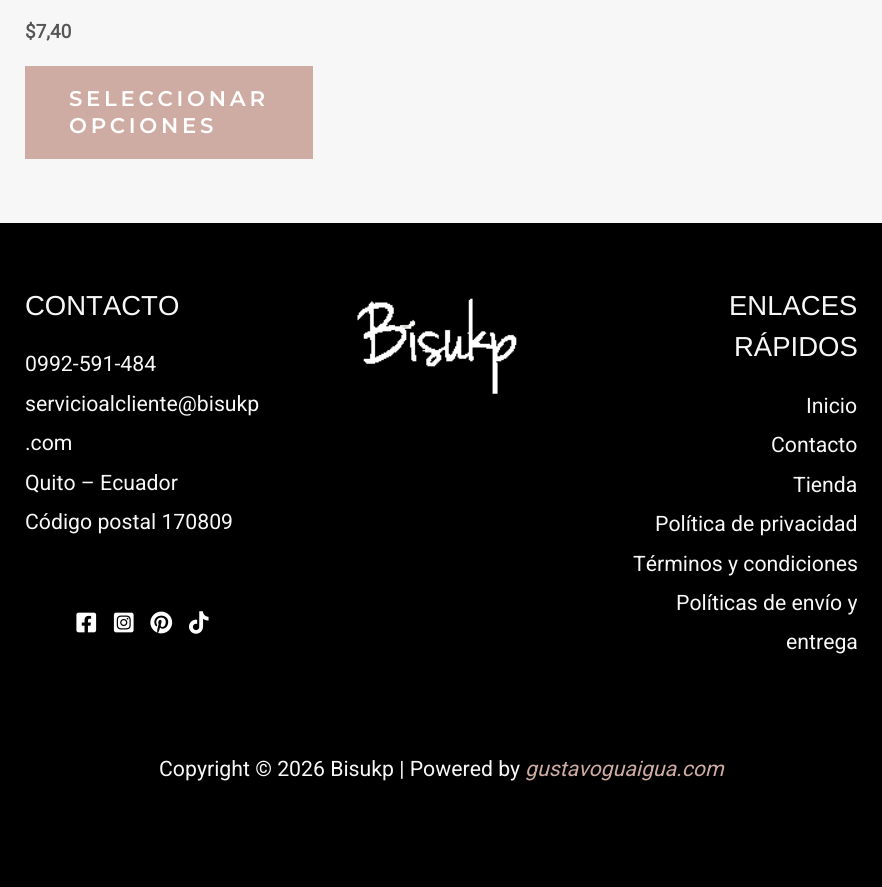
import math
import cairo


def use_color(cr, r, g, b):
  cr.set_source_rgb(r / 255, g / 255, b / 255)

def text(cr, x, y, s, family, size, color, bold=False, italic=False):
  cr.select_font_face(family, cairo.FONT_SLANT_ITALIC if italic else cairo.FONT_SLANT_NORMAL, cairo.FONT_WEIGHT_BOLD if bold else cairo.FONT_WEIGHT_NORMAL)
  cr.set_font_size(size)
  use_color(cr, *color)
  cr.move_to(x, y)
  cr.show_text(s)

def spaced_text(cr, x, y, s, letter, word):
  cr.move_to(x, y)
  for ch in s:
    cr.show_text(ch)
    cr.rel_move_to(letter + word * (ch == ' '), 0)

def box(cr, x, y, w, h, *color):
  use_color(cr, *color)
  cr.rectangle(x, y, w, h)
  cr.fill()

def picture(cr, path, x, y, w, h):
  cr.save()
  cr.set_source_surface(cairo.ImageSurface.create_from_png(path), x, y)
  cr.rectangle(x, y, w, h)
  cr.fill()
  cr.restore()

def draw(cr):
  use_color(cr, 247, 247, 247)
  cr.paint()
  box(cr, 25, 66, 288, 93, 207, 172, 163)
  box(cr, 0, 223, 882, 664, 0, 0, 0)
  picture(cr, "img_01.png", 76, 612, 21, 21)
  picture(cr, "img_02.png", 113, 612, 21, 21)
  picture(cr, "img_03.png", 150, 611, 23, 23)
  picture(cr, "img_04.png", 189, 611, 20, 23)
  picture(cr, "img_05.png", 357, 298, 160, 96)
  text(cr, 25, 38, "$7,40", "Roboto", 19, (86, 86, 86), bold=True)
  cr.select_font_face("Montserrat Thin")
  cr.set_font_size(21.25)
  use_color(cr, 255, 255, 255)
  spaced_text(cr, 69, 106, "SELECCIONAR", 3.75, 0)
  spaced_text(cr, 69, 133, "OPCIONES", 3.75, 0)
  text(cr, 25, 315, "CONTACTO", "Liberation Sans", 27.5, (247, 247, 247))
  text(cr, 25, 371, "0992-591-484", "Roboto", 21.25, (247, 247, 247))
  text(cr, 25, 411, "servicioalcliente@bisukp", "Roboto", 21.25, (247, 247, 247))
  text(cr, 25, 450, ".com", "Roboto", 21.25, (247, 247, 247))
  text(cr, 25, 490, "Quito – Ecuador", "Roboto", 21.25, (247, 247, 247))
  text(cr, 25, 529, "Código postal 170809", "Roboto", 21.25, (247, 247, 247))
  text(cr, 729, 315, "ENLACES", "Liberation Sans", 27.5, (247, 247, 247))
  text(cr, 734, 356, "RÁPIDOS", "Liberation Sans", 27.5, (247, 247, 247))
  text(cr, 806, 413, "Inicio", "Roboto", 21.25, (247, 247, 247))
  text(cr, 771, 452, "Contacto", "Roboto", 21.25, (247, 247, 247))
  text(cr, 793, 492, "Tienda", "Roboto", 21.25, (247, 247, 247))
  text(cr, 655, 531, "Política de privacidad", "Roboto", 21.25, (247, 247, 247))
  text(cr, 633, 571, "Términos y condiciones", "Roboto", 21.25, (247, 247, 247))
  text(cr, 676, 610, "Políticas de envío y", "Roboto", 21.25, (247, 247, 247))
  text(cr, 786, 649, "entrega", "Roboto", 21.25, (247, 247, 247))
  text(cr, 159, 776, "Copyright © 2026 Bisukp | Powered by", "Roboto", 21.25, (247, 247, 247))
  text(cr, 525, 776, "gustavoguaigua.com", "Roboto", 21.25, (207, 172, 163), italic=True)


surface = cairo.ImageSurface(cairo.FORMAT_RGB24, 882, 887)
cr = cairo.Context(surface)
options = cairo.FontOptions()
options.set_hint_metrics(cairo.HINT_METRICS_OFF)
options.set_hint_style(cairo.HINT_STYLE_NONE)
cr.set_font_options(options)
cr.set_miter_limit(4)
draw(cr)
surface.write_to_png("out.png")
